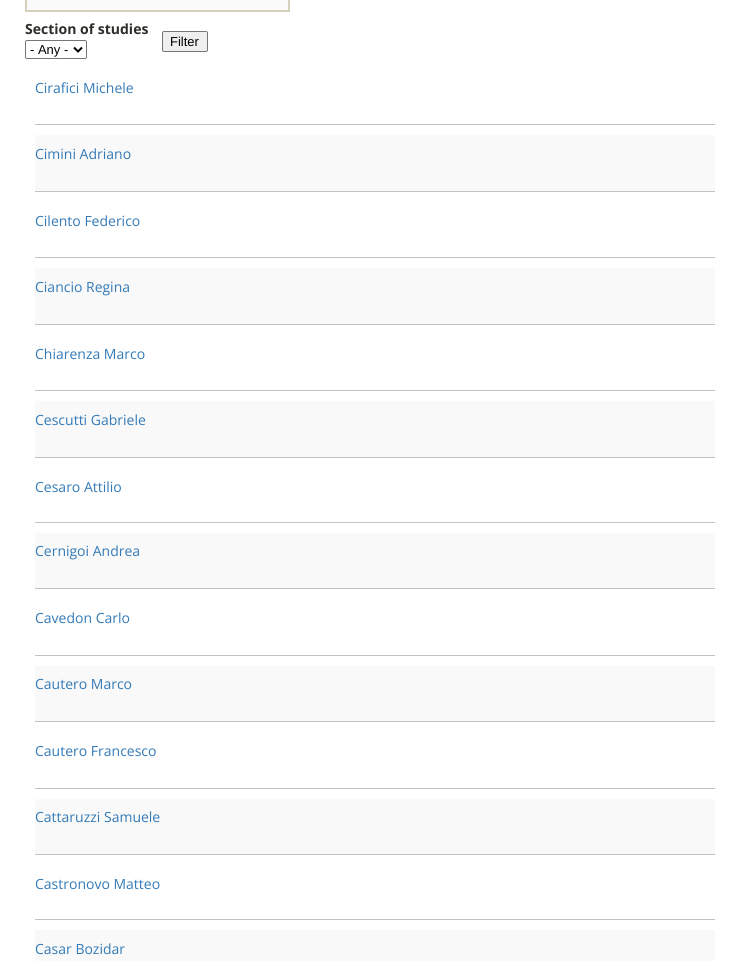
import math
import cairo


def use_color(cr, r, g, b):
  cr.set_source_rgb(r / 255, g / 255, b / 255)

def text(cr, x, y, s, family, size, color, bold=False, italic=False):
  cr.select_font_face(family, cairo.FONT_SLANT_ITALIC if italic else cairo.FONT_SLANT_NORMAL, cairo.FONT_WEIGHT_BOLD if bold else cairo.FONT_WEIGHT_NORMAL)
  cr.set_font_size(size)
  use_color(cr, *color)
  cr.move_to(x, y)
  cr.show_text(s)

def box(cr, x, y, w, h, *color):
  use_color(cr, *color)
  cr.rectangle(x, y, w, h)
  cr.fill()

def round_rect(cr, x, y, w, h, r):
  cr.new_sub_path()
  for i, (u, v) in enumerate([(x + w - r, y + h - r), (x + r, y + h - r), (x + r, y + r), (x + w - r, y + r)]):
    cr.arc(u, v, r, i * math.pi / 2, (i + 1) * math.pi / 2)
  cr.close_path()

def draw(cr):
  use_color(cr, 255, 255, 255)
  cr.paint()
  use_color(cr, 250, 250, 250)
  cr.rectangle(26, -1, 263, 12)
  cr.fill_preserve()
  use_color(cr, 212, 208, 188)
  cr.stroke()
  round_rect(cr, 25.5, 40.5, 61, 18, 1.5)
  use_color(cr, 118, 118, 118)
  cr.set_line_width(1)
  cr.stroke()
  cr.new_path()
  cr.move_to(74, 47.5)
  cr.line_to(78, 51.5)
  cr.line_to(82, 47.5)
  use_color(cr, 0, 0, 0)
  cr.set_line_width(2)
  cr.stroke()
  use_color(cr, 239, 239, 239)
  round_rect(cr, 162.5, 31.5, 45, 20, 1.5)
  cr.fill_preserve()
  use_color(cr, 118, 118, 118)
  cr.set_line_width(1)
  cr.stroke()
  box(cr, 35, 124, 680, 1, 194, 194, 194)
  box(cr, 35, 135, 680, 56, 249, 249, 249)
  box(cr, 35, 191, 680, 1, 194, 194, 194)
  box(cr, 35, 257, 680, 1, 194, 194, 194)
  box(cr, 35, 268, 680, 56, 249, 249, 249)
  box(cr, 35, 324, 680, 1, 194, 194, 194)
  box(cr, 35, 390, 680, 1, 194, 194, 194)
  box(cr, 35, 401, 680, 56, 249, 249, 249)
  box(cr, 35, 457, 680, 1, 194, 194, 194)
  box(cr, 35, 522, 680, 1, 194, 194, 194)
  box(cr, 35, 533, 680, 55, 249, 249, 249)
  box(cr, 35, 588, 680, 1, 194, 194, 194)
  box(cr, 35, 655, 680, 1, 194, 194, 194)
  box(cr, 35, 666, 680, 55, 249, 249, 249)
  box(cr, 35, 721, 680, 1, 194, 194, 194)
  box(cr, 35, 788, 680, 1, 194, 194, 194)
  box(cr, 35, 799, 680, 55, 249, 249, 249)
  box(cr, 35, 854, 680, 1, 194, 194, 194)
  box(cr, 35, 919, 680, 1, 194, 194, 194)
  box(cr, 35, 930, 680, 31, 249, 249, 249)
  text(cr, 25, 34, "Section of studies", "Open Sans", 14, (46, 45, 41), bold=True)
  text(cr, 30, 54, "- Any -", "Liberation Sans", 13, (0, 0, 0))
  text(cr, 170, 46, "Filter", "Liberation Sans", 13, (0, 0, 0))
  text(cr, 35, 93, "Cirafici Michele", "Open Sans", 14, (51, 122, 183))
  text(cr, 35, 159, "Cimini Adriano", "Open Sans", 14, (51, 122, 183))
  text(cr, 35, 226, "Cilento Federico", "Open Sans", 14, (51, 122, 183))
  text(cr, 35, 292, "Ciancio Regina", "Open Sans", 14, (51, 122, 183))
  text(cr, 35, 359, "Chiarenza Marco", "Open Sans", 14, (51, 122, 183))
  text(cr, 35, 425, "Cescutti Gabriele", "Open Sans", 14, (51, 122, 183))
  text(cr, 35, 492, "Cesaro Attilio", "Open Sans", 14, (51, 122, 183))
  text(cr, 35, 556, "Cernigoi Andrea", "Open Sans", 14, (51, 122, 183))
  text(cr, 35, 623, "Cavedon Carlo", "Open Sans", 14, (51, 122, 183))
  text(cr, 35, 689, "Cautero Marco", "Open Sans", 14, (51, 122, 183))
  text(cr, 35, 756, "Cautero Francesco", "Open Sans", 14, (51, 122, 183))
  text(cr, 35, 822, "Cattaruzzi Samuele", "Open Sans", 14, (51, 122, 183))
  text(cr, 35, 889, "Castronovo Matteo", "Open Sans", 14, (51, 122, 183))
  text(cr, 35, 954, "Casar Bozidar", "Open Sans", 14, (51, 122, 183))


surface = cairo.ImageSurface(cairo.FORMAT_RGB24, 740, 961)
cr = cairo.Context(surface)
options = cairo.FontOptions()
options.set_hint_metrics(cairo.HINT_METRICS_OFF)
options.set_hint_style(cairo.HINT_STYLE_NONE)
cr.set_font_options(options)
cr.set_miter_limit(4)
draw(cr)
surface.write_to_png("out.png")
